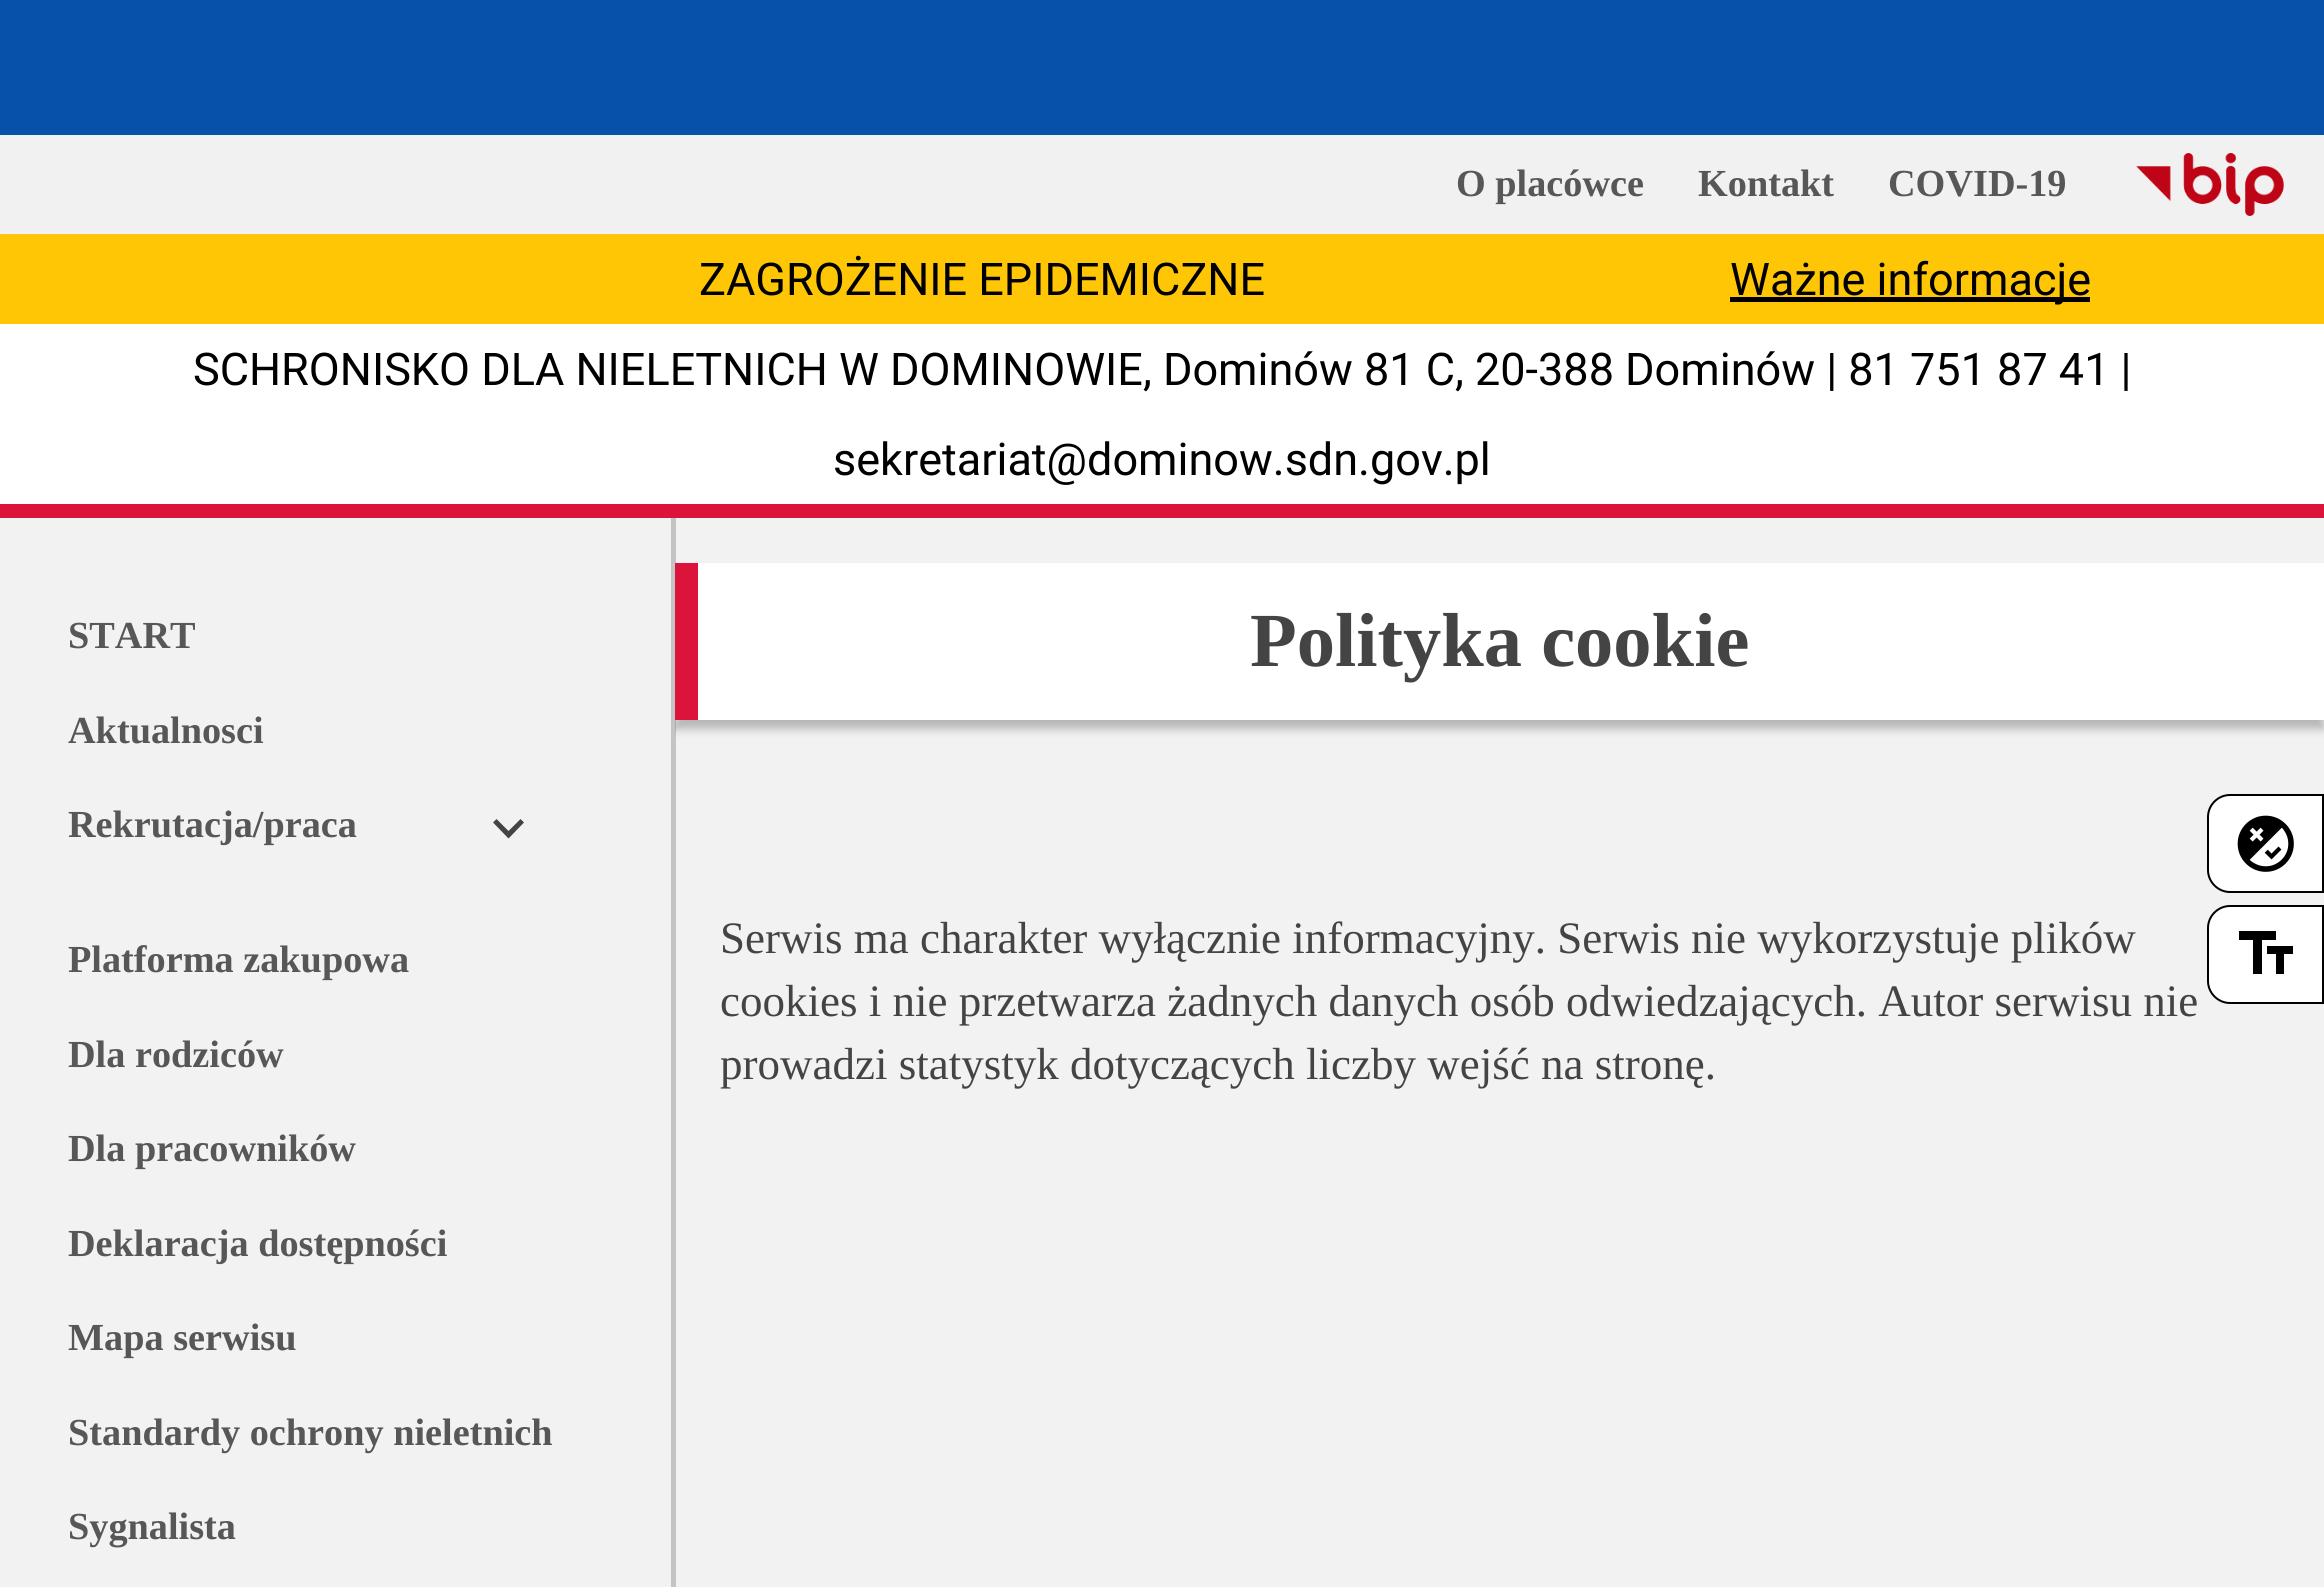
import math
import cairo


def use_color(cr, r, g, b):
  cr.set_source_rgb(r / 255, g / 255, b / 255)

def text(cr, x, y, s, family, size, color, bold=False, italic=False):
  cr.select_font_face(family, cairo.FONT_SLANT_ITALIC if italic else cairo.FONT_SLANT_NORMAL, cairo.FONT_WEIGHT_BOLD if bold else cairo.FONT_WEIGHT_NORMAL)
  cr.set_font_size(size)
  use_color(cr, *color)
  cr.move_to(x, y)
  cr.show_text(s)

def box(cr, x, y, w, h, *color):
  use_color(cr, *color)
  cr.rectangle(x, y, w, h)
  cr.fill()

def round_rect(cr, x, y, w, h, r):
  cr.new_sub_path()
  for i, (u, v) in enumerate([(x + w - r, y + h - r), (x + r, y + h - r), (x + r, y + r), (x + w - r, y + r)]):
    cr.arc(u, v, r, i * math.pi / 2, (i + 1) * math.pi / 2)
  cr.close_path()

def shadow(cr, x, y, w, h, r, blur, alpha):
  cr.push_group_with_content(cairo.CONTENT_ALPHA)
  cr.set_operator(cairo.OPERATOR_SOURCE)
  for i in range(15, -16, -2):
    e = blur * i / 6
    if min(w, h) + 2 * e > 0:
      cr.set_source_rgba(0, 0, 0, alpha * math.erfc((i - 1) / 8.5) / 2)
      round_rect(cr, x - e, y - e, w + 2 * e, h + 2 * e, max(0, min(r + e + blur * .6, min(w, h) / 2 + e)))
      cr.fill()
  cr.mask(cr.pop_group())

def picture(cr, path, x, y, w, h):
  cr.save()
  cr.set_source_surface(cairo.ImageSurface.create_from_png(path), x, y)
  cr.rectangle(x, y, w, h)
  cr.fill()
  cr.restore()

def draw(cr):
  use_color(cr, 255, 255, 255)
  cr.paint()
  box(cr, 0, 0, 2324, 135, 7, 81, 171)
  box(cr, 0, 135, 2324, 99, 241, 241, 241)
  picture(cr, "img_01.png", 2136, 153, 148, 63)
  box(cr, 0, 234, 2324, 90, 255, 198, 5)
  box(cr, 1730, 297, 360, 5, 0, 0, 0)
  box(cr, 0, 504, 2324, 14, 220, 20, 60)
  box(cr, 0, 518, 2324, 1069, 242, 242, 242)
  use_color(cr, 68, 68, 68)
  cr.new_path()
  cr.move_to(496.5, 819)
  cr.line_to(508.5, 831)
  cr.line_to(520.5, 819)
  cr.line_to(524, 822.5)
  cr.line_to(508.5, 838.5)
  cr.line_to(493, 822.5)
  cr.close_path()
  cr.fill()
  box(cr, 671, 518, 5, 1069, 196, 196, 196)
  cr.save()
  cr.rectangle(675, 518, 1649, 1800)
  cr.clip()
  use_color(cr, 0, 0, 0)
  shadow(cr, 675, 572, 1649, 157, 0, 4.5, 0.25)
  cr.restore()
  box(cr, 698, 563, 1626, 157, 255, 255, 255)
  box(cr, 675, 563, 23, 157, 220, 20, 60)
  use_color(cr, 255, 255, 255)
  cr.new_path()
  cr.move_to(2230, 795)
  cr.line_to(2323, 795)
  cr.line_to(2323, 892)
  cr.line_to(2230, 892)
  cr.curve_to(2218, 892, 2208, 882, 2208, 870)
  cr.line_to(2208, 817)
  cr.curve_to(2208, 805, 2218, 795, 2230, 795)
  cr.close_path()
  cr.fill_preserve()
  use_color(cr, 0, 0, 0)
  cr.stroke()
  picture(cr, "img_02.png", 2237, 815, 57, 57)
  use_color(cr, 255, 255, 255)
  cr.new_path()
  cr.move_to(2230, 906)
  cr.line_to(2323, 906)
  cr.line_to(2323, 1003)
  cr.line_to(2230, 1003)
  cr.curve_to(2218, 1003, 2208, 993, 2208, 981)
  cr.line_to(2208, 928)
  cr.curve_to(2208, 916, 2218, 906, 2230, 906)
  cr.close_path()
  cr.fill_preserve()
  use_color(cr, 0, 0, 0)
  cr.stroke()
  cr.new_path()
  cr.move_to(2293, 946)
  cr.line_to(2293, 954)
  cr.line_to(2284, 954)
  cr.line_to(2284, 974)
  cr.line_to(2276, 974)
  cr.line_to(2276, 954)
  cr.line_to(2267, 954)
  cr.line_to(2267, 946)
  cr.close_path()
  cr.move_to(2239, 931)
  cr.line_to(2276, 931)
  cr.line_to(2276, 940)
  cr.line_to(2262, 940)
  cr.line_to(2262, 974)
  cr.line_to(2253, 974)
  cr.line_to(2253, 940)
  cr.line_to(2239, 940)
  cr.close_path()
  cr.fill()
  text(cr, 1456, 196, "O placówce", "Liberation Serif", 38.25, (87, 87, 87), bold=True)
  text(cr, 1698, 196, "Kontakt", "Liberation Serif", 38.25, (87, 87, 87), bold=True)
  text(cr, 1888, 196, "COVID-19", "Liberation Serif", 38.25, (87, 87, 87), bold=True)
  text(cr, 699, 295, "ZAGROŻENIE EPIDEMICZNE", "Roboto", 45, (0, 0, 0))
  text(cr, 1730, 295, "Ważne informacje", "Roboto", 45, (0, 0, 0))
  text(cr, 193, 385, "SCHRONISKO DLA NIELETNICH W DOMINOWIE, Dominów 81 C, 20-388 Dominów | 81 751 87 41 |", "Roboto", 45, (0, 0, 0))
  text(cr, 833, 475, "sekretariat@dominow.sdn.gov.pl", "Roboto", 45, (0, 0, 0))
  text(cr, 68, 648, "START", "Liberation Serif", 38.25, (87, 87, 87), bold=True)
  text(cr, 68, 743, "Aktualnosci", "Liberation Serif", 38.25, (87, 87, 87), bold=True)
  text(cr, 68, 837, "Rekrutacja/praca", "Liberation Serif", 38.25, (87, 87, 87), bold=True)
  text(cr, 68, 972, "Platforma zakupowa", "Liberation Serif", 38.25, (87, 87, 87), bold=True)
  text(cr, 68, 1067, "Dla rodziców", "Liberation Serif", 38.25, (87, 87, 87), bold=True)
  text(cr, 68, 1161, "Dla pracowników", "Liberation Serif", 38.25, (87, 87, 87), bold=True)
  text(cr, 68, 1256, "Deklaracja dostępności", "Liberation Serif", 38.25, (87, 87, 87), bold=True)
  text(cr, 68, 1350, "Mapa serwisu", "Liberation Serif", 38.25, (87, 87, 87), bold=True)
  text(cr, 68, 1445, "Standardy ochrony nieletnich", "Liberation Serif", 38.25, (87, 87, 87), bold=True)
  text(cr, 68, 1539, "Sygnalista", "Liberation Serif", 38.25, (87, 87, 87), bold=True)
  text(cr, 1250, 666, "Polityka cookie", "Liberation Serif", 76.5, (68, 68, 68), bold=True)
  text(cr, 720, 953, "Serwis ma charakter wyłącznie informacyjny. Serwis nie wykorzystuje plików", "Liberation Serif", 45, (68, 68, 68))
  text(cr, 720, 1016, "cookies i nie przetwarza żadnych danych osób odwiedzających. Autor serwisu nie", "Liberation Serif", 45, (68, 68, 68))
  text(cr, 720, 1079, "prowadzi statystyk dotyczących liczby wejść na stronę.", "Liberation Serif", 45, (68, 68, 68))


surface = cairo.ImageSurface(cairo.FORMAT_RGB24, 2324, 1587)
cr = cairo.Context(surface)
options = cairo.FontOptions()
options.set_hint_metrics(cairo.HINT_METRICS_OFF)
options.set_hint_style(cairo.HINT_STYLE_NONE)
cr.set_font_options(options)
cr.set_miter_limit(4)
draw(cr)
surface.write_to_png("out.png")
